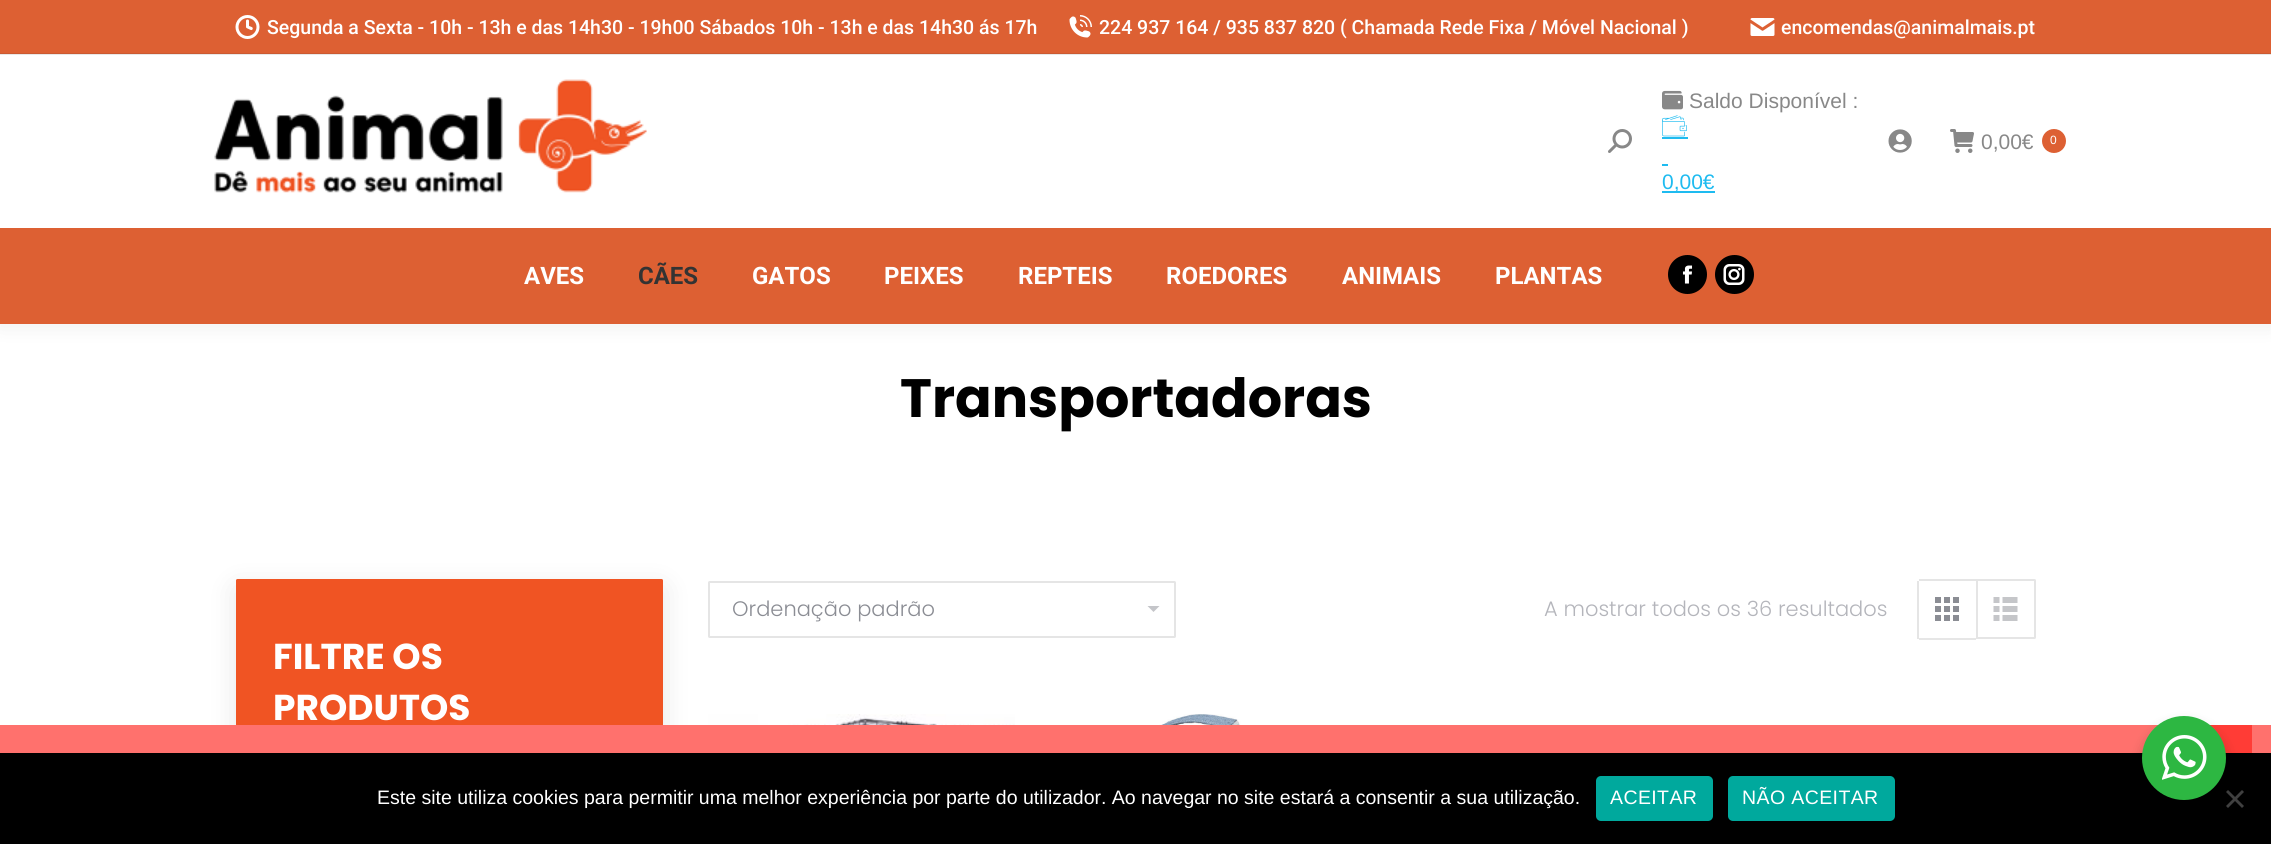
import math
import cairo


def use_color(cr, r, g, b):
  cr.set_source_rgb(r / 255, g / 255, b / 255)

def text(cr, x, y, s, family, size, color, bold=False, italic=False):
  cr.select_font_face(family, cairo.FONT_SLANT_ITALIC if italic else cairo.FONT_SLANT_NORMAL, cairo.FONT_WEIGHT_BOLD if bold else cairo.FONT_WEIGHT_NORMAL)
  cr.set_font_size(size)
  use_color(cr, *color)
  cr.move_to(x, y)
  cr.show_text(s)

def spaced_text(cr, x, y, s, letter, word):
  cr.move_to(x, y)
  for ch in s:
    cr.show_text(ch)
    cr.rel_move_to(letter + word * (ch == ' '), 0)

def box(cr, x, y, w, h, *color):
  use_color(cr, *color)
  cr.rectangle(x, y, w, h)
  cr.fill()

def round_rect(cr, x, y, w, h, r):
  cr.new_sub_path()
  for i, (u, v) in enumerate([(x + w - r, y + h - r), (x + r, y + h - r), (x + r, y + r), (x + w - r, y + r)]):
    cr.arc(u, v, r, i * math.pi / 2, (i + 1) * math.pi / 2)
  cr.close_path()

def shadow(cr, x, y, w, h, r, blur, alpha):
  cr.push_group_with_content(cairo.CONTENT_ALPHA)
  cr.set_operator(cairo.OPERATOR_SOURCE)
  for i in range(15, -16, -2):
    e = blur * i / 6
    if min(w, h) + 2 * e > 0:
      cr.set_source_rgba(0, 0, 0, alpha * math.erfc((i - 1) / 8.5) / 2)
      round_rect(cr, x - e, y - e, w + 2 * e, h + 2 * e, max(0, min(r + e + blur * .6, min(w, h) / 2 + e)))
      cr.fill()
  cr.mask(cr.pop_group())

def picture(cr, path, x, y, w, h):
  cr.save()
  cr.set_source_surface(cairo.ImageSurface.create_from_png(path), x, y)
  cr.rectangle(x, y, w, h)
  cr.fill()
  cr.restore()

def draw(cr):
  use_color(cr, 255, 255, 255)
  cr.paint()
  use_color(cr, 0, 0, 0)
  shadow(cr, -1, -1, 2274, 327, 0, 11, 0.07)
  box(cr, 0, 54, 2271, 174, 255, 255, 255)
  box(cr, 0, 0, 2271, 54, 221, 96, 51)
  picture(cr, "img_01.png", 235, 15, 25, 24)
  picture(cr, "img_02.png", 1069, 15, 23, 23)
  picture(cr, "img_03.png", 1750, 18, 25, 18)
  cr.set_source_rgba(0.2, 0.2, 0.2, 0.11)
  cr.rectangle(0, 53, 2271, 2)
  cr.fill()
  picture(cr, "img_04.png", 214, 79, 433, 114)
  picture(cr, "img_05.png", 1608, 129, 24, 24)
  picture(cr, "img_06.png", 1662, 90, 21, 20)
  picture(cr, "img_07.png", 1662, 115, 25, 22)
  box(cr, 1662, 137, 26, 2, 30, 187, 240)
  box(cr, 1662, 164, 6, 2, 30, 187, 240)
  box(cr, 1662, 191, 53, 2, 30, 187, 240)
  picture(cr, "img_08.png", 1888, 129, 24, 24)
  picture(cr, "img_09.png", 1950, 129, 24, 24)
  use_color(cr, 221, 96, 51)
  cr.arc(2054, 141, 12, 0, 2 * math.pi)
  cr.fill()
  box(cr, 0, 228, 2271, 96, 221, 96, 51)
  use_color(cr, 0, 0, 0)
  cr.arc(1687.5, 274.5, 19.5, 0, 2 * math.pi)
  cr.fill()
  picture(cr, "img_10.png", 1682, 265, 11, 19)
  cr.arc(1734.5, 274.5, 19.5, 0, 2 * math.pi)
  cr.fill()
  picture(cr, "img_11.png", 1723, 264, 22, 21)
  use_color(cr, 196, 197, 201)
  cr.new_path()
  cr.move_to(1147.5, 606)
  cr.line_to(1153.5, 612)
  cr.line_to(1159.5, 606)
  cr.close_path()
  cr.fill()
  round_rect(cr, 709, 582, 466, 55, 0.5)
  use_color(cr, 229, 229, 229)
  cr.stroke()
  box(cr, 1919, 579, 57, 2, 229, 229, 229)
  box(cr, 1919, 638, 57, 2, 230, 230, 230)
  box(cr, 1917, 581, 2, 58, 229, 229, 229)
  picture(cr, "img_12.png", 1935, 597, 24, 24)
  cr.new_path()
  cr.move_to(1977, 580)
  cr.line_to(2034.5, 580)
  cr.curve_to(2035, 580, 2035, 580, 2035, 580.5)
  cr.line_to(2035, 637.5)
  cr.curve_to(2035, 638, 2035, 638, 2034.5, 638)
  cr.line_to(1977, 638)
  cr.close_path()
  cr.stroke()
  picture(cr, "img_13.png", 1993, 597, 25, 24)
  picture(cr, "img_14.png", 708, 714, 307, 11)
  picture(cr, "img_15.png", 1094, 714, 219, 11)
  use_color(cr, 0, 0, 0)
  shadow(cr, 236, 588, 427, 192, 1.5, 13.5, 0.1)
  use_color(cr, 240, 84, 35)
  round_rect(cr, 236, 579, 427, 192, 1.5)
  cr.fill()
  box(cr, 0, 725, 2271, 28, 255, 113, 109)
  box(cr, 2210, 725, 42, 28, 255, 60, 54)
  box(cr, 0, 753, 2271, 91, 0, 0, 0)
  use_color(cr, 64, 64, 64)
  cr.new_path()
  cr.move_to(2242, 790)
  cr.line_to(2244, 792)
  cr.line_to(2228, 808)
  cr.line_to(2226, 806)
  cr.close_path()
  cr.fill()
  cr.new_path()
  cr.move_to(2226, 792)
  cr.line_to(2228, 790)
  cr.line_to(2244, 806)
  cr.line_to(2242, 808)
  cr.close_path()
  cr.fill()
  use_color(cr, 0, 0, 0)
  shadow(cr, 2139, 722, 90, 90, 45, 6, 0.14)
  use_color(cr, 45, 183, 66)
  cr.arc(2184, 758, 42, 0, 2 * math.pi)
  cr.fill()
  picture(cr, "img_16.png", 2162, 735, 45, 45)
  use_color(cr, 0, 169, 157)
  round_rect(cr, 1596, 776, 117, 45, 5)
  cr.fill()
  round_rect(cr, 1728, 776, 167, 45, 5)
  cr.fill()
  text(cr, 267, 34, "Segunda a Sexta - 10h - 13h e das 14h30 - 19h00 Sábados 10h - 13h e das 14h30 ás 17h", "Roboto Medium", 19.5, (255, 255, 255))
  text(cr, 1099, 34, "224 937 164 / 935 837 820 ( Chamada Rede Fixa / Móvel Nacional )", "Roboto Medium", 19.5, (255, 255, 255))
  text(cr, 1781, 34, "encomendas@animalmais.pt", "Roboto Medium", 19.5, (255, 255, 255))
  text(cr, 1689, 108, "Saldo Disponível :", "Liberation Sans", 21, (136, 136, 136))
  text(cr, 1662, 189, "0,00€", "Liberation Sans", 21, (30, 187, 240))
  text(cr, 1981, 149, "0,00€", "Liberation Sans", 21, (136, 136, 136))
  text(cr, 2050, 144, "0", "Liberation Sans", 12, (255, 255, 255))
  text(cr, 524, 284, "AVES", "Roboto", 24, (255, 255, 255), bold=True)
  text(cr, 638, 284, "CÃES", "Roboto", 24, (51, 51, 51), bold=True)
  text(cr, 752, 284, "GATOS", "Roboto", 24, (255, 255, 255), bold=True)
  text(cr, 884, 284, "PEIXES", "Roboto", 24, (255, 255, 255), bold=True)
  text(cr, 1018, 284, "REPTEIS", "Roboto", 24, (255, 255, 255), bold=True)
  text(cr, 1166, 284, "ROEDORES", "Roboto", 24, (255, 255, 255), bold=True)
  text(cr, 1342, 284, "ANIMAIS", "Roboto", 24, (255, 255, 255), bold=True)
  text(cr, 1495, 284, "PLANTAS", "Roboto", 24, (255, 255, 255), bold=True)
  text(cr, 900, 417, "Transportadoras", "Poppins", 54, (0, 0, 0), bold=True)
  text(cr, 732, 616, "Ordenação padrão", "Poppins Light", 21, (139, 141, 148))
  text(cr, 1544, 616, "A mostrar todos os 36 resultados", "Poppins Light", 21, (180, 181, 187))
  text(cr, 273, 669, "FILTRE OS", "Poppins", 36, (255, 255, 255), bold=True)
  text(cr, 273, 720, "PRODUTOS", "Poppins", 36, (255, 255, 255), bold=True)
  text(cr, 377, 804, "Este site utiliza cookies para permitir uma melhor experiência por parte do utilizador. Ao navegar no site estará a consentir a sua utilização.", "Liberation Sans", 19.5, (255, 255, 255))
  spaced_text(cr, 1610, 804, "ACEITAR", 0.4, 0)
  spaced_text(cr, 1742, 804, "NÃO ACEITAR", 0.4, 0)


surface = cairo.ImageSurface(cairo.FORMAT_RGB24, 2271, 844)
cr = cairo.Context(surface)
options = cairo.FontOptions()
options.set_hint_metrics(cairo.HINT_METRICS_OFF)
options.set_hint_style(cairo.HINT_STYLE_NONE)
cr.set_font_options(options)
cr.set_miter_limit(4)
draw(cr)
surface.write_to_png("out.png")
